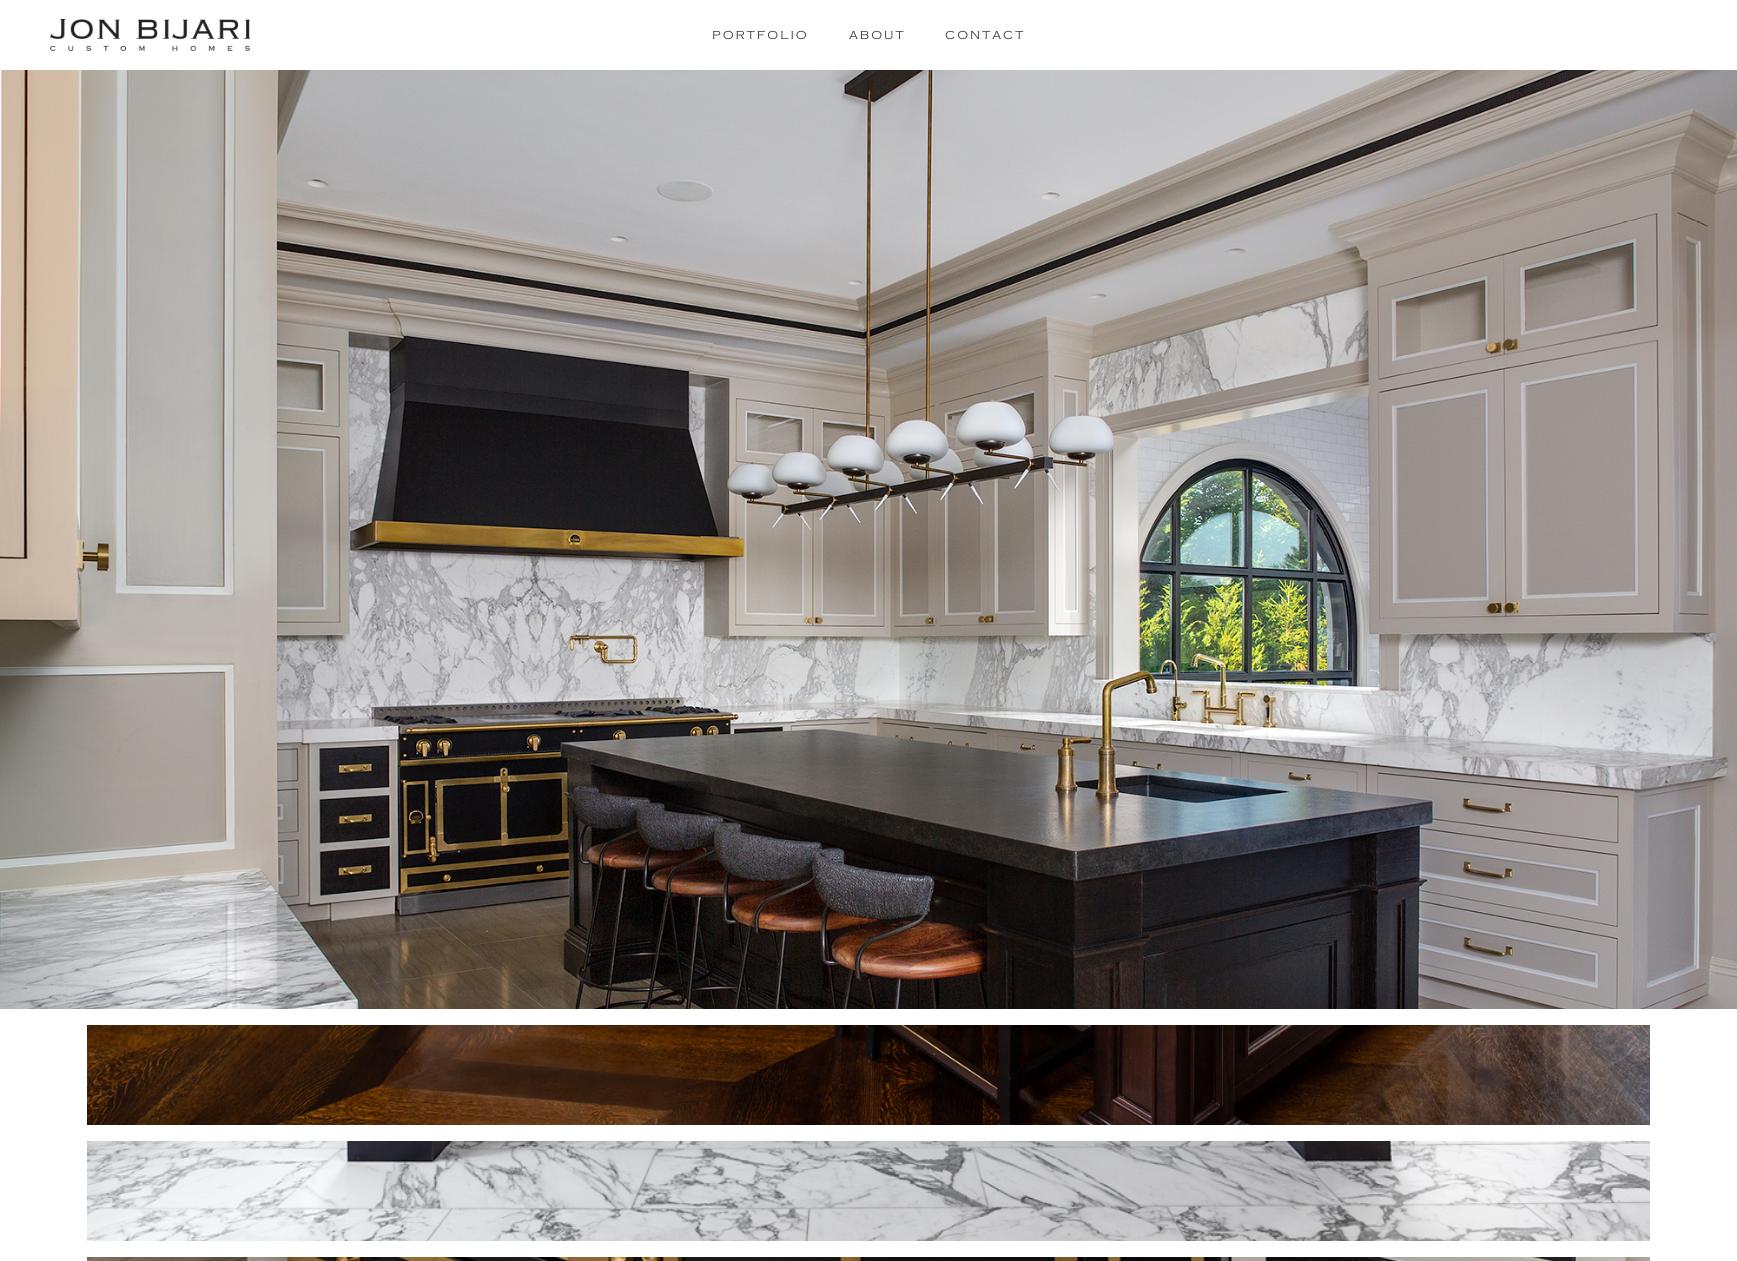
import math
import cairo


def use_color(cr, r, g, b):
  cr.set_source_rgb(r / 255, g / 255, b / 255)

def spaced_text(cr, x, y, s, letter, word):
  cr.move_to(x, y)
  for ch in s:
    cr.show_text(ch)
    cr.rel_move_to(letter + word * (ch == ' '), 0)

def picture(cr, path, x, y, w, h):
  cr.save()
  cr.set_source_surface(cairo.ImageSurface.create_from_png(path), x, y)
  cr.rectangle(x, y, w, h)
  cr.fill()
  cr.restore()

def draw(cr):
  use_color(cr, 255, 255, 255)
  cr.paint()
  picture(cr, "img_01.png", 50, 19, 200, 32)
  picture(cr, "img_02.png", 0, 70, 1737, 939)
  picture(cr, "img_03.png", 87, 1025, 1563, 100)
  picture(cr, "img_04.png", 87, 1141, 1563, 100)
  picture(cr, "img_05.png", 87, 1257, 1563, 4)
  cr.select_font_face("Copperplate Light")
  cr.set_font_size(12)
  use_color(cr, 60, 60, 59)
  spaced_text(cr, 712, 39, "PORTFOLIO", 2, 0)
  spaced_text(cr, 849, 39, "ABOUT", 2, 0)
  spaced_text(cr, 945, 39, "CONTACT", 2, 0)


surface = cairo.ImageSurface(cairo.FORMAT_RGB24, 1737, 1261)
cr = cairo.Context(surface)
options = cairo.FontOptions()
options.set_hint_metrics(cairo.HINT_METRICS_OFF)
options.set_hint_style(cairo.HINT_STYLE_NONE)
cr.set_font_options(options)
cr.set_miter_limit(4)
draw(cr)
surface.write_to_png("out.png")
